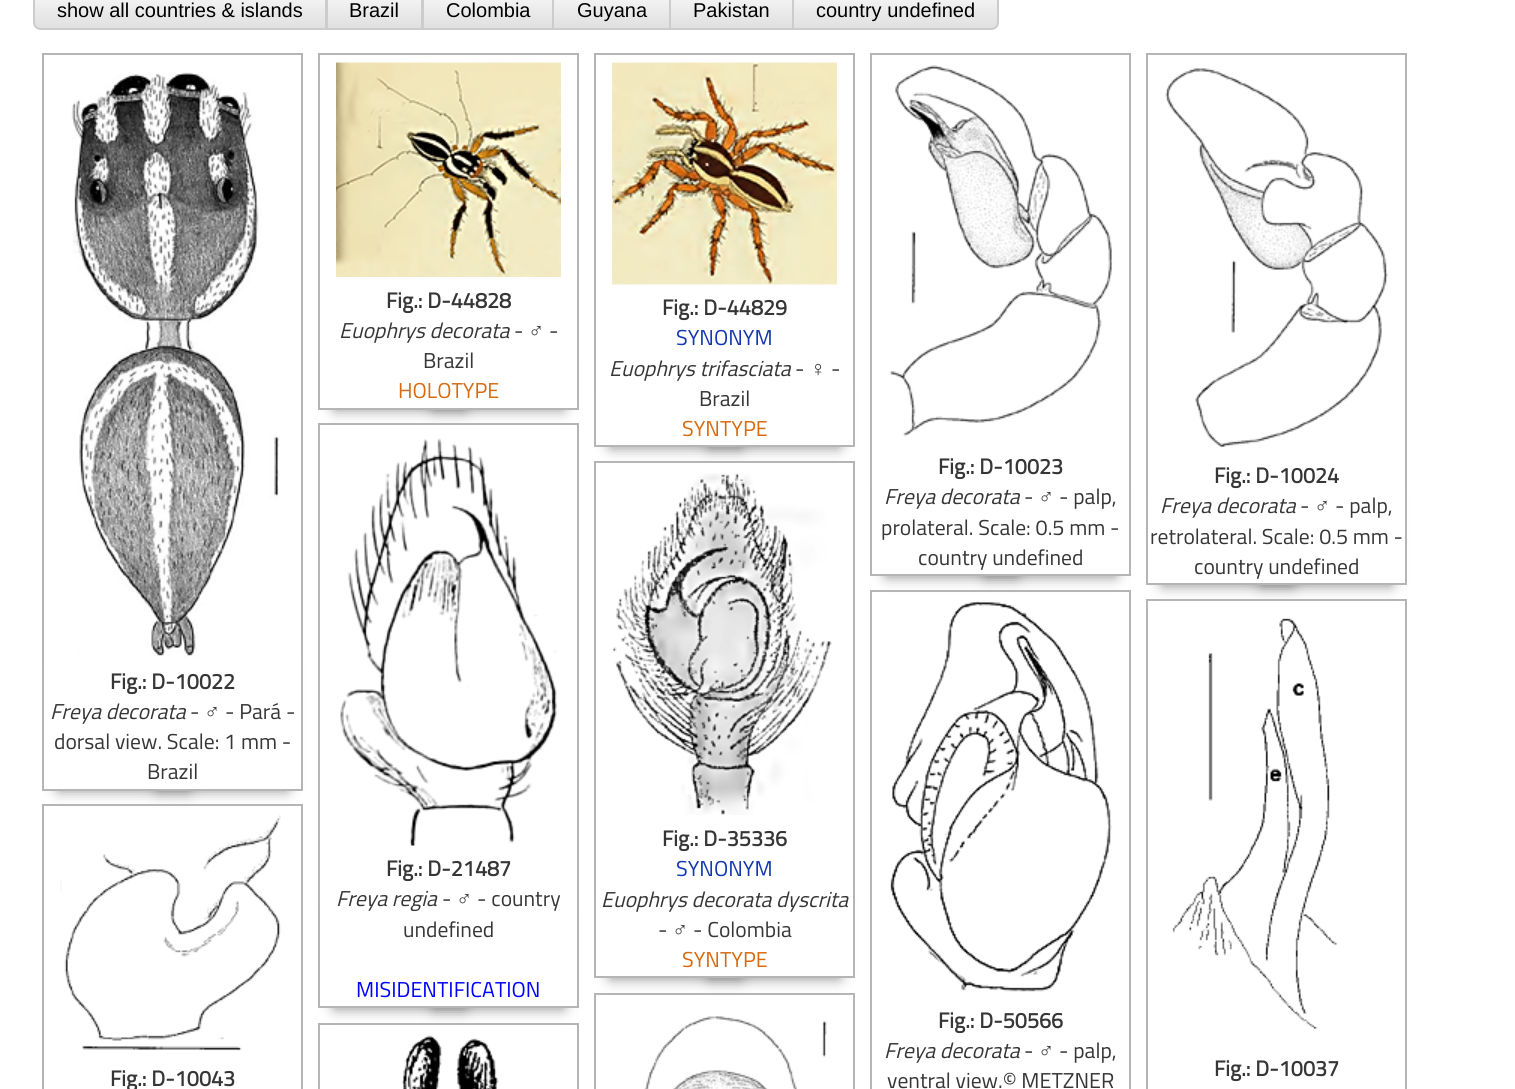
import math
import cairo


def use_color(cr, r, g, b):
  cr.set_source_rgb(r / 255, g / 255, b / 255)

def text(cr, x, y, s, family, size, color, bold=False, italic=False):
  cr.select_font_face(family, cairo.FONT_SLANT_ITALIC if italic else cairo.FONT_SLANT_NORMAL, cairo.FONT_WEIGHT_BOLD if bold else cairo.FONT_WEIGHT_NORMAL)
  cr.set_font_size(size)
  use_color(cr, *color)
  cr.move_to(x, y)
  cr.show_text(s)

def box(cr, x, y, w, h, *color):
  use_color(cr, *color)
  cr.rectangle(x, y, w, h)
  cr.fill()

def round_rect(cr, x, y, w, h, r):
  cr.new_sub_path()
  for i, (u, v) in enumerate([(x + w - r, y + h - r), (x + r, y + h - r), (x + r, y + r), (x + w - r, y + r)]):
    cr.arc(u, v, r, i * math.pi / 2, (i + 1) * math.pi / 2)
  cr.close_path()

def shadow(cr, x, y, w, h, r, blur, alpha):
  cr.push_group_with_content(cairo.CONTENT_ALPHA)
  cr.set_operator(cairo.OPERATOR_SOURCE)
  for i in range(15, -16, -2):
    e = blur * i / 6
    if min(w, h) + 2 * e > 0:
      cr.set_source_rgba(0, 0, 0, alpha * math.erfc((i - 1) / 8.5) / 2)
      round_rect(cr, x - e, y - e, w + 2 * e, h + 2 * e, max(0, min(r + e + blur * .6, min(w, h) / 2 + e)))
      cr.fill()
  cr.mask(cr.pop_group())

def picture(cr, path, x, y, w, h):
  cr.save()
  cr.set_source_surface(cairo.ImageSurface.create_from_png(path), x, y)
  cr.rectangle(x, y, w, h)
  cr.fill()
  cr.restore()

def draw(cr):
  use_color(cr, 255, 255, 255)
  cr.paint()
  use_color(cr, 248, 248, 248)
  cr.new_path()
  cr.move_to(41, -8)
  cr.line_to(327, -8)
  cr.line_to(327, 30)
  cr.line_to(41, 30)
  cr.curve_to(36.5, 30, 33, 26.5, 33, 22)
  cr.line_to(33, 0)
  cr.curve_to(33, -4.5, 36.5, -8, 41, -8)
  cr.close_path()
  cr.fill()
  cr.save()
  cr.new_path()
  cr.move_to(41, -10)
  cr.line_to(327, -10)
  cr.line_to(327, 30)
  cr.line_to(41, 30)
  cr.curve_to(36.5, 30, 33, 26.5, 33, 22)
  cr.line_to(33, -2)
  cr.curve_to(33, -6.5, 36.5, -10, 41, -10)
  cr.close_path()
  cr.clip()
  gradient = cairo.LinearGradient(180, -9, 180, 29)
  gradient.add_color_stop_rgba(0, 0, 0, 0, 0)
  gradient.add_color_stop_rgba(1, 0, 0, 0, 0.1)
  cr.set_source(gradient)
  cr.rectangle(33, 0, 292, 29)
  cr.fill()
  cr.restore()
  cr.new_path()
  cr.move_to(41, -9)
  cr.line_to(326, -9)
  cr.line_to(326, 29)
  cr.line_to(41, 29)
  cr.curve_to(37, 29, 34, 26, 34, 22)
  cr.line_to(34, -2)
  cr.curve_to(34, -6, 37, -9, 41, -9)
  cr.close_path()
  use_color(cr, 204, 204, 204)
  cr.stroke()
  gradient = cairo.LinearGradient(374, -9, 374, 29)
  gradient.add_color_stop_rgba(0, 0.973, 0.973, 0.973, 1)
  gradient.add_color_stop_rgba(1, 0.875, 0.875, 0.875, 1)
  cr.set_source(gradient)
  cr.rectangle(328, 0, 93, 28)
  cr.fill()
  cr.rectangle(327, -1, 95, 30)
  use_color(cr, 204, 204, 204)
  cr.stroke()
  gradient = cairo.LinearGradient(488, -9, 488, 29)
  gradient.add_color_stop_rgba(0, 0.973, 0.973, 0.973, 1)
  gradient.add_color_stop_rgba(1, 0.875, 0.875, 0.875, 1)
  cr.set_source(gradient)
  cr.rectangle(424, 0, 128, 28)
  cr.fill()
  cr.rectangle(423, -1, 130, 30)
  use_color(cr, 204, 204, 204)
  cr.stroke()
  gradient = cairo.LinearGradient(611, -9, 611, 29)
  gradient.add_color_stop_rgba(0, 0.973, 0.973, 0.973, 1)
  gradient.add_color_stop_rgba(1, 0.875, 0.875, 0.875, 1)
  cr.set_source(gradient)
  cr.rectangle(554, 0, 115, 28)
  cr.fill()
  cr.rectangle(553, -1, 117, 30)
  use_color(cr, 204, 204, 204)
  cr.stroke()
  gradient = cairo.LinearGradient(731, -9, 731, 29)
  gradient.add_color_stop_rgba(0, 0.973, 0.973, 0.973, 1)
  gradient.add_color_stop_rgba(1, 0.875, 0.875, 0.875, 1)
  cr.set_source(gradient)
  cr.rectangle(671, 0, 121, 28)
  cr.fill()
  cr.rectangle(670, -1, 123, 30)
  use_color(cr, 204, 204, 204)
  cr.stroke()
  use_color(cr, 248, 248, 248)
  cr.new_path()
  cr.move_to(792, -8)
  cr.line_to(991, -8)
  cr.curve_to(995.5, -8, 999, -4.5, 999, 0)
  cr.line_to(999, 22)
  cr.curve_to(999, 26.5, 995.5, 30, 991, 30)
  cr.line_to(792, 30)
  cr.close_path()
  cr.fill()
  cr.save()
  cr.new_path()
  cr.move_to(792, -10)
  cr.line_to(991, -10)
  cr.curve_to(995.5, -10, 999, -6.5, 999, -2)
  cr.line_to(999, 22)
  cr.curve_to(999, 26.5, 995.5, 30, 991, 30)
  cr.line_to(792, 30)
  cr.close_path()
  cr.clip()
  gradient = cairo.LinearGradient(896, -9, 896, 29)
  gradient.add_color_stop_rgba(0, 0, 0, 0, 0)
  gradient.add_color_stop_rgba(1, 0, 0, 0, 0.1)
  cr.set_source(gradient)
  cr.rectangle(794, 0, 205, 29)
  cr.fill()
  cr.restore()
  cr.new_path()
  cr.move_to(793, -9)
  cr.line_to(991, -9)
  cr.curve_to(995, -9, 998, -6, 998, -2)
  cr.line_to(998, 22)
  cr.curve_to(998, 26, 995, 29, 991, 29)
  cr.line_to(793, 29)
  cr.close_path()
  use_color(cr, 204, 204, 204)
  cr.stroke()
  use_color(cr, 119, 119, 119)
  shadow(cr, 335, 360, 129, 48, 0, 7.5, 1)
  shadow(cr, 434, 360, 129, 48, 0, 7.5, 1)
  box(cr, 320, 342, 257, 66, 255, 255, 255)
  cr.rectangle(319, 54, 259, 355)
  use_color(cr, 182, 181, 180)
  cr.stroke()
  picture(cr, "img_01.png", 336, 62, 225, 215)
  use_color(cr, 119, 119, 119)
  shadow(cr, 611, 390, 129, 56, 0, 7.5, 1)
  shadow(cr, 710, 390, 129, 56, 0, 7.5, 1)
  box(cr, 596, 372, 257, 73, 255, 255, 255)
  cr.rectangle(595, 54, 259, 392)
  use_color(cr, 182, 181, 180)
  cr.stroke()
  picture(cr, "img_02.png", 612, 62, 225, 223)
  use_color(cr, 119, 119, 119)
  shadow(cr, 887, 492, 129, 83, 0, 7.5, 1)
  shadow(cr, 986, 492, 129, 83, 0, 7.5, 1)
  box(cr, 872, 474, 257, 100, 255, 255, 255)
  cr.rectangle(871, 54, 259, 521)
  use_color(cr, 182, 181, 180)
  cr.stroke()
  picture(cr, "img_03.png", 889, 65, 224, 372)
  use_color(cr, 119, 119, 119)
  shadow(cr, 1163, 500, 129, 84, 0, 7.5, 1)
  shadow(cr, 1262, 500, 129, 84, 0, 7.5, 1)
  box(cr, 1148, 482, 257, 101, 255, 255, 255)
  cr.rectangle(1147, 54, 259, 530)
  use_color(cr, 182, 181, 180)
  cr.stroke()
  picture(cr, "img_04.png", 1165, 68, 223, 380)
  use_color(cr, 119, 119, 119)
  shadow(cr, 59, 665, 129, 124, 0, 7.5, 1)
  shadow(cr, 158, 665, 129, 124, 0, 7.5, 1)
  box(cr, 44, 647, 257, 142, 255, 255, 255)
  cr.rectangle(43, 54, 259, 736)
  use_color(cr, 182, 181, 180)
  cr.stroke()
  picture(cr, "img_05.png", 71, 72, 209, 586)
  use_color(cr, 119, 119, 119)
  shadow(cr, 335, 912, 129, 95, 0, 7.5, 1)
  shadow(cr, 434, 912, 129, 95, 0, 7.5, 1)
  use_color(cr, 255, 255, 255)
  cr.rectangle(319, 424, 259, 583)
  cr.fill_preserve()
  use_color(cr, 182, 181, 180)
  cr.stroke()
  picture(cr, "img_06.png", 340, 438, 217, 408)
  use_color(cr, 119, 119, 119)
  shadow(cr, 611, 896, 129, 81, 0, 7.5, 1)
  shadow(cr, 710, 896, 129, 81, 0, 7.5, 1)
  use_color(cr, 255, 255, 255)
  cr.rectangle(595, 462, 259, 515)
  cr.fill_preserve()
  use_color(cr, 182, 181, 180)
  cr.stroke()
  picture(cr, "img_07.png", 613, 473, 219, 342)
  box(cr, 169, 806, 8, 1, 255, 255, 255)
  cr.rectangle(43, 805, 259, 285)
  use_color(cr, 182, 181, 180)
  cr.stroke()
  picture(cr, "img_08.png", 60, 815, 221, 236)
  cr.rectangle(319, 1024, 259, 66)
  cr.stroke()
  picture(cr, "img_09.png", 401, 1035, 98, 54)
  cr.rectangle(595, 994, 259, 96)
  cr.stroke()
  picture(cr, "img_10.png", 644, 1016, 183, 73)
  box(cr, 997, 592, 8, 1, 255, 255, 255)
  cr.rectangle(871, 591, 259, 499)
  use_color(cr, 182, 181, 180)
  cr.stroke()
  picture(cr, "img_11.png", 890, 601, 222, 391)
  box(cr, 1273, 601, 8, 1, 255, 255, 255)
  cr.rectangle(1147, 600, 259, 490)
  use_color(cr, 182, 181, 180)
  cr.stroke()
  picture(cr, "img_12.png", 1172, 618, 165, 411)
  text(cr, 57, 17, "show all countries & islands", "Liberation Sans", 20, (0, 0, 0))
  text(cr, 349, 17, "Brazil", "Liberation Sans", 20, (0, 0, 0))
  text(cr, 446, 17, "Colombia", "Liberation Sans", 20, (0, 0, 0))
  text(cr, 577, 17, "Guyana", "Liberation Sans", 20, (0, 0, 0))
  text(cr, 693, 17, "Pakistan", "Liberation Sans", 20, (0, 0, 0))
  text(cr, 816, 17, "country undefined", "Liberation Sans", 20, (0, 0, 0))
  text(cr, 386, 308, "Fig.: D-44828", "Titillium Web", 21.6, (54, 54, 54), bold=True)
  text(cr, 339, 338, "Euophrys decorata", "Titillium Web", 21.6, (54, 54, 54), italic=True)
  text(cr, 514, 338, "-", "Titillium Web", 21.6, (54, 54, 54))
  text(cr, 528, 338, "♂", "Liberation Serif", 21.6, (54, 54, 54))
  text(cr, 549, 338, "-", "Titillium Web", 21.6, (54, 54, 54))
  text(cr, 423, 368, "Brazil", "Titillium Web", 21.6, (54, 54, 54))
  text(cr, 398, 398, "HOLOTYPE", "Titillium Web", 21.6, (214, 106, 15))
  text(cr, 662, 315, "Fig.: D-44829", "Titillium Web", 21.6, (54, 54, 54), bold=True)
  text(cr, 676, 345, "SYNONYM", "Titillium Web", 21.6, (19, 55, 175))
  text(cr, 609, 376, "Euophrys trifasciata", "Titillium Web", 21.6, (54, 54, 54), italic=True)
  text(cr, 795, 376, "-", "Titillium Web", 21.6, (54, 54, 54))
  text(cr, 810, 376, "♀", "Liberation Serif", 21.6, (54, 54, 54))
  text(cr, 831, 376, "-", "Titillium Web", 21.6, (54, 54, 54))
  text(cr, 699, 406, "Brazil", "Titillium Web", 21.6, (54, 54, 54))
  text(cr, 682, 436, "SYNTYPE", "Titillium Web", 21.6, (214, 106, 15))
  text(cr, 938, 474, "Fig.: D-10023", "Titillium Web", 21.6, (54, 54, 54), bold=True)
  text(cr, 884, 504, "Freya decorata", "Titillium Web", 21.6, (54, 54, 54), italic=True)
  text(cr, 1024, 504, "-", "Titillium Web", 21.6, (54, 54, 54))
  text(cr, 1038, 504, "♂", "Liberation Serif", 21.6, (54, 54, 54))
  text(cr, 1059, 504, "- palp,", "Titillium Web", 21.6, (54, 54, 54))
  text(cr, 881, 535, "prolateral. Scale: 0.5 mm -", "Titillium Web", 21.6, (54, 54, 54))
  text(cr, 918, 565, "country undefined", "Titillium Web", 21.6, (54, 54, 54))
  text(cr, 1214, 483, "Fig.: D-10024", "Titillium Web", 21.6, (54, 54, 54), bold=True)
  text(cr, 1160, 513, "Freya decorata", "Titillium Web", 21.6, (54, 54, 54), italic=True)
  text(cr, 1300, 513, "-", "Titillium Web", 21.6, (54, 54, 54))
  text(cr, 1314, 513, "♂", "Liberation Serif", 21.6, (54, 54, 54))
  text(cr, 1335, 513, "- palp,", "Titillium Web", 21.6, (54, 54, 54))
  text(cr, 1150, 544, "retrolateral. Scale: 0.5 mm -", "Titillium Web", 21.6, (54, 54, 54))
  text(cr, 1194, 574, "country undefined", "Titillium Web", 21.6, (54, 54, 54))
  text(cr, 110, 689, "Fig.: D-10022", "Titillium Web", 21.6, (54, 54, 54), bold=True)
  text(cr, 50, 719, "Freya decorata", "Titillium Web", 21.6, (54, 54, 54), italic=True)
  text(cr, 190, 719, "-", "Titillium Web", 21.6, (54, 54, 54))
  text(cr, 204, 719, "♂", "Liberation Serif", 21.6, (54, 54, 54))
  text(cr, 225, 719, "- Pará -", "Titillium Web", 21.6, (54, 54, 54))
  text(cr, 54, 749, "dorsal view. Scale: 1 mm -", "Titillium Web", 21.6, (54, 54, 54))
  text(cr, 147, 779, "Brazil", "Titillium Web", 21.6, (54, 54, 54))
  text(cr, 386, 876, "Fig.: D-21487", "Titillium Web", 21.6, (54, 54, 54), bold=True)
  text(cr, 336, 906, "Freya regia", "Titillium Web", 21.6, (54, 54, 54), italic=True)
  text(cr, 442, 906, "-", "Titillium Web", 21.6, (54, 54, 54))
  text(cr, 456, 906, "♂", "Liberation Serif", 21.6, (54, 54, 54))
  text(cr, 477, 906, "- country", "Titillium Web", 21.6, (54, 54, 54))
  text(cr, 403, 937, "undefined", "Titillium Web", 21.6, (54, 54, 54))
  text(cr, 356, 997, "MISIDENTIFICATION", "Titillium Web", 21.6, (0, 0, 255))
  text(cr, 662, 846, "Fig.: D-35336", "Titillium Web", 21.6, (54, 54, 54), bold=True)
  text(cr, 676, 876, "SYNONYM", "Titillium Web", 21.6, (19, 55, 175))
  text(cr, 601, 907, "Euophrys decorata dyscrita", "Titillium Web", 21.6, (54, 54, 54), italic=True)
  text(cr, 658, 937, "-", "Titillium Web", 21.6, (54, 54, 54))
  text(cr, 672, 937, "♂", "Liberation Serif", 21.6, (54, 54, 54))
  text(cr, 693, 937, "- Colombia", "Titillium Web", 21.6, (54, 54, 54))
  text(cr, 682, 967, "SYNTYPE", "Titillium Web", 21.6, (214, 106, 15))
  text(cr, 110, 1086, "Fig.: D-10043", "Titillium Web", 21.6, (54, 54, 54), bold=True)
  text(cr, 938, 1028, "Fig.: D-50566", "Titillium Web", 21.6, (54, 54, 54), bold=True)
  text(cr, 884, 1058, "Freya decorata", "Titillium Web", 21.6, (54, 54, 54), italic=True)
  text(cr, 1024, 1058, "-", "Titillium Web", 21.6, (54, 54, 54))
  text(cr, 1038, 1058, "♂", "Liberation Serif", 21.6, (54, 54, 54))
  text(cr, 1059, 1058, "- palp,", "Titillium Web", 21.6, (54, 54, 54))
  text(cr, 887, 1088, "ventral view.© METZNER", "Titillium Web", 21.6, (54, 54, 54))
  text(cr, 1214, 1076, "Fig.: D-10037", "Titillium Web", 21.6, (54, 54, 54), bold=True)


surface = cairo.ImageSurface(cairo.FORMAT_RGB24, 1515, 1089)
cr = cairo.Context(surface)
options = cairo.FontOptions()
options.set_hint_metrics(cairo.HINT_METRICS_OFF)
options.set_hint_style(cairo.HINT_STYLE_NONE)
cr.set_font_options(options)
cr.set_miter_limit(4)
draw(cr)
surface.write_to_png("out.png")
